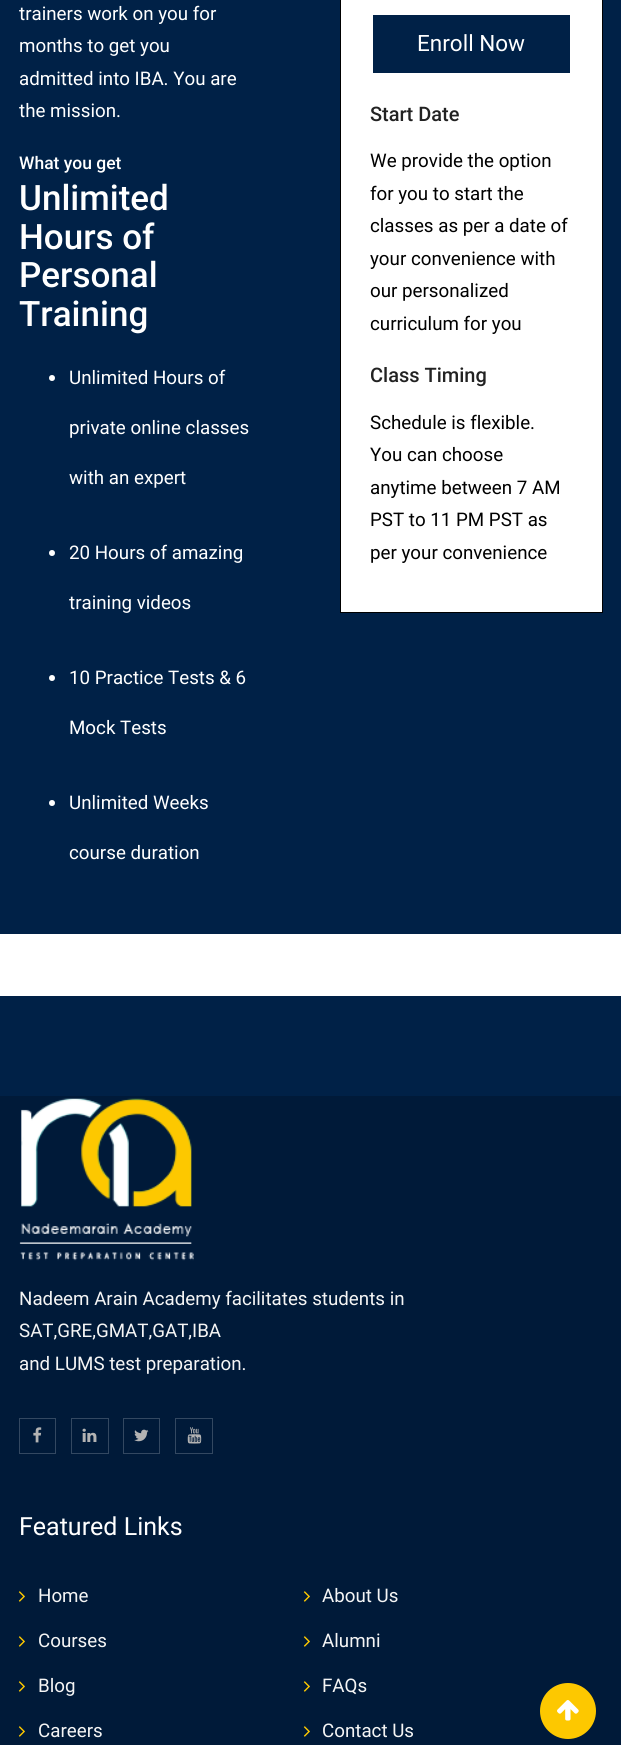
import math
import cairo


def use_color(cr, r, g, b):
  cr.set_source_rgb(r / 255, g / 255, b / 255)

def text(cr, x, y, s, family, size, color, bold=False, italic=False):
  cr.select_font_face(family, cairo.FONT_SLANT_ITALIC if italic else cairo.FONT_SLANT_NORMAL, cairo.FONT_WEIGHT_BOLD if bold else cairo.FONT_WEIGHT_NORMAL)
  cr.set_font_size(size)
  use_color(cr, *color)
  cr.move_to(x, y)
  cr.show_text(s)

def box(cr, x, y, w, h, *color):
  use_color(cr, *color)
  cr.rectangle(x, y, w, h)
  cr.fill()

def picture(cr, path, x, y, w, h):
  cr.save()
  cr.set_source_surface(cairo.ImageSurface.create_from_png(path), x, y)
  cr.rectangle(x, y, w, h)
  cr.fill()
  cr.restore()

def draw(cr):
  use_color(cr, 255, 255, 255)
  cr.paint()
  box(cr, 0, 0, 621, 934, 0, 33, 71)
  use_color(cr, 255, 255, 255)
  cr.arc(52, 378, 3, 0, 2 * math.pi)
  cr.fill()
  cr.arc(52, 553, 3, 0, 2 * math.pi)
  cr.fill()
  cr.arc(52, 678, 3, 0, 2 * math.pi)
  cr.fill()
  cr.arc(52, 803, 3, 0, 2 * math.pi)
  cr.fill()
  cr.rectangle(340.5, -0.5, 262, 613)
  cr.fill_preserve()
  use_color(cr, 0, 0, 0)
  cr.set_line_width(1)
  cr.stroke()
  box(cr, 373, 15, 197, 58, 0, 33, 71)
  box(cr, 0, 996, 621, 100, 0, 33, 71)
  box(cr, 0, 1096, 621, 649, 0, 26, 57)
  picture(cr, "img_01.png", 19, 1098, 175, 163)
  cr.rectangle(19.5, 1418.5, 36, 35)
  use_color(cr, 51, 72, 97)
  cr.stroke()
  picture(cr, "img_02.png", 33, 1427, 9, 16)
  cr.rectangle(71.5, 1418.5, 37, 35)
  cr.stroke()
  picture(cr, "img_03.png", 82, 1428, 15, 14)
  cr.rectangle(123.5, 1418.5, 36, 35)
  cr.stroke()
  picture(cr, "img_04.png", 134, 1429, 15, 13)
  cr.rectangle(175.5, 1418.5, 37, 35)
  cr.stroke()
  picture(cr, "img_05.png", 187, 1427, 15, 17)
  picture(cr, "img_06.png", 18, 1591, 7, 11)
  picture(cr, "img_06.png", 303, 1591, 7, 11)
  picture(cr, "img_06.png", 18, 1636, 7, 11)
  picture(cr, "img_06.png", 303, 1636, 7, 11)
  picture(cr, "img_06.png", 18, 1681, 7, 11)
  picture(cr, "img_06.png", 303, 1681, 7, 11)
  picture(cr, "img_06.png", 18, 1726, 7, 11)
  picture(cr, "img_06.png", 303, 1726, 7, 11)
  use_color(cr, 253, 200, 0)
  cr.arc(568, 1711, 28, 0, 2 * math.pi)
  cr.fill()
  picture(cr, "img_07.png", 557, 1700, 22, 21)
  text(cr, 19, 20, "trainers work on you for", "Roboto", 18.75, (255, 255, 255))
  text(cr, 19, 52, "months to get you", "Roboto", 18.75, (255, 255, 255))
  text(cr, 19, 85, "admitted into IBA. You are", "Roboto", 18.75, (255, 255, 255))
  text(cr, 19, 117, "the mission.", "Roboto", 18.75, (255, 255, 255))
  text(cr, 19, 169, "What you get", "Roboto Medium", 17.5, (255, 255, 255))
  text(cr, 19, 210, "Unlimited", "Roboto Medium", 35, (255, 255, 255))
  text(cr, 19, 249, "Hours of", "Roboto Medium", 35, (255, 255, 255))
  text(cr, 19, 287, "Personal", "Roboto Medium", 35, (255, 255, 255))
  text(cr, 19, 326, "Training", "Roboto Medium", 35, (255, 255, 255))
  text(cr, 69, 384, "Unlimited Hours of", "Roboto", 18.75, (255, 255, 255))
  text(cr, 69, 434, "private online classes", "Roboto", 18.75, (255, 255, 255))
  text(cr, 69, 484, "with an expert", "Roboto", 18.75, (255, 255, 255))
  text(cr, 69, 559, "20 Hours of amazing", "Roboto", 18.75, (255, 255, 255))
  text(cr, 69, 609, "training videos", "Roboto", 18.75, (255, 255, 255))
  text(cr, 69, 684, "10 Practice Tests & 6", "Roboto", 18.75, (255, 255, 255))
  text(cr, 69, 734, "Mock Tests", "Roboto", 18.75, (255, 255, 255))
  text(cr, 69, 809, "Unlimited Weeks", "Roboto", 18.75, (255, 255, 255))
  text(cr, 69, 859, "course duration", "Roboto", 18.75, (255, 255, 255))
  text(cr, 417, 51, "Enroll Now", "Roboto", 22.5, (255, 255, 255))
  text(cr, 370, 121, "Start Date", "Roboto Medium", 20, (34, 34, 34))
  text(cr, 370, 167, "We provide the option", "Roboto", 18.75, (0, 0, 0))
  text(cr, 370, 200, "for you to start the", "Roboto", 18.75, (0, 0, 0))
  text(cr, 370, 232, "classes as per a date of", "Roboto", 18.75, (0, 0, 0))
  text(cr, 370, 265, "your convenience with", "Roboto", 18.75, (0, 0, 0))
  text(cr, 370, 297, "our personalized", "Roboto", 18.75, (0, 0, 0))
  text(cr, 370, 330, "curriculum for you", "Roboto", 18.75, (0, 0, 0))
  text(cr, 370, 382, "Class Timing", "Roboto Medium", 20, (34, 34, 34))
  text(cr, 370, 429, "Schedule is flexible.", "Roboto", 18.75, (0, 0, 0))
  text(cr, 370, 461, "You can choose", "Roboto", 18.75, (0, 0, 0))
  text(cr, 370, 494, "anytime between 7 AM", "Roboto", 18.75, (0, 0, 0))
  text(cr, 370, 526, "PST to 11 PM PST as", "Roboto", 18.75, (0, 0, 0))
  text(cr, 370, 559, "per your convenience", "Roboto", 18.75, (0, 0, 0))
  text(cr, 19, 1305, "Nadeem Arain Academy facilitates students in", "Roboto", 18.75, (245, 245, 245))
  text(cr, 19, 1337, "SAT,GRE,GMAT,GAT,IBA", "Roboto", 18.75, (245, 245, 245))
  text(cr, 19, 1370, "and LUMS test preparation.", "Roboto", 18.75, (245, 245, 245))
  text(cr, 19, 1535, "Featured Links", "Roboto", 25, (255, 255, 255))
  text(cr, 38, 1602, "Home", "Roboto", 18.75, (245, 245, 245))
  text(cr, 322, 1602, "About Us", "Roboto", 18.75, (245, 245, 245))
  text(cr, 38, 1647, "Courses", "Roboto", 18.75, (245, 245, 245))
  text(cr, 322, 1647, "Alumni", "Roboto", 18.75, (245, 245, 245))
  text(cr, 38, 1692, "Blog", "Roboto", 18.75, (245, 245, 245))
  text(cr, 322, 1692, "FAQs", "Roboto", 18.75, (245, 245, 245))
  text(cr, 38, 1737, "Careers", "Roboto", 18.75, (245, 245, 245))
  text(cr, 322, 1737, "Contact Us", "Roboto", 18.75, (245, 245, 245))


surface = cairo.ImageSurface(cairo.FORMAT_RGB24, 621, 1745)
cr = cairo.Context(surface)
options = cairo.FontOptions()
options.set_hint_metrics(cairo.HINT_METRICS_OFF)
options.set_hint_style(cairo.HINT_STYLE_NONE)
cr.set_font_options(options)
cr.set_miter_limit(4)
draw(cr)
surface.write_to_png("out.png")
